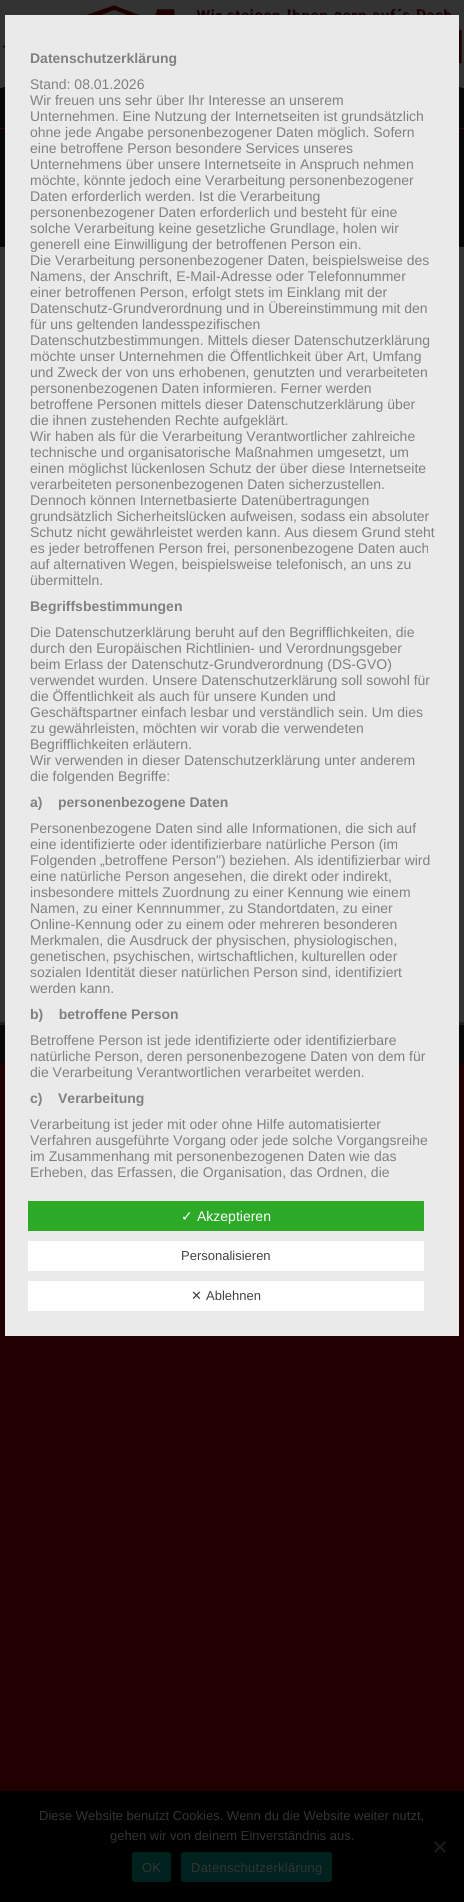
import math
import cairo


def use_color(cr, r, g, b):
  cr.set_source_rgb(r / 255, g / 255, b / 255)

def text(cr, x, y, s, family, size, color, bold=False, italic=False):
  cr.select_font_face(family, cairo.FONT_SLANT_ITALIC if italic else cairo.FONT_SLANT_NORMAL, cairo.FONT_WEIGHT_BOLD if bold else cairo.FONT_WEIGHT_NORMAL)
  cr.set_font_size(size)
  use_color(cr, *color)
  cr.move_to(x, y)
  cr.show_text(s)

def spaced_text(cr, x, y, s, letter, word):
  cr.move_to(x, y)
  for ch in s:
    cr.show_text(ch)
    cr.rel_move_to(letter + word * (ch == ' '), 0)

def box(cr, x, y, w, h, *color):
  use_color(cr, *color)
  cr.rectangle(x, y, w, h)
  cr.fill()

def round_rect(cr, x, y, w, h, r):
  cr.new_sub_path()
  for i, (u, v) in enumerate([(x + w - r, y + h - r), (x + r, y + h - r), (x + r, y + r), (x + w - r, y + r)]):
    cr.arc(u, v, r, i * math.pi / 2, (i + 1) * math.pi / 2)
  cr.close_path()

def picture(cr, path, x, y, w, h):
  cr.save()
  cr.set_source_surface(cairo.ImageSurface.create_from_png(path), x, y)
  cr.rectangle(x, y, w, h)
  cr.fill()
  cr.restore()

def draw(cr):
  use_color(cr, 32, 0, 1)
  cr.paint()
  box(cr, 0, 0, 464, 88, 51, 51, 51)
  picture(cr, "img_01.png", 2, 5, 460, 83)
  box(cr, 0, 88, 464, 159, 8, 8, 8)
  box(cr, 0, 128, 464, 1, 46, 15, 14)
  box(cr, 0, 247, 464, 775, 51, 51, 51)
  box(cr, 0, 1025, 464, 39, 8, 8, 8)
  box(cr, 0, 1022, 464, 3, 31, 31, 31)
  box(cr, 5, 15, 454, 1321, 234, 234, 234)
  box(cr, 28, 1201, 396, 30, 44, 170, 39)
  box(cr, 28, 1241, 396, 30, 255, 255, 255)
  box(cr, 28, 1281, 396, 30, 255, 255, 255)
  box(cr, 0, 1791, 464, 111, 0, 0, 0)
  use_color(cr, 26, 26, 26)
  cr.new_path()
  cr.move_to(444.5, 1841)
  cr.line_to(446, 1842.5)
  cr.line_to(435.5, 1853)
  cr.line_to(434, 1851.5)
  cr.close_path()
  cr.fill()
  cr.new_path()
  cr.move_to(434, 1842.5)
  cr.line_to(435.5, 1841)
  cr.line_to(446, 1851.5)
  cr.line_to(444.5, 1853)
  cr.close_path()
  cr.fill()
  use_color(cr, 0, 34, 31)
  round_rect(cr, 132, 1852, 39, 30, 3)
  cr.fill()
  round_rect(cr, 181, 1852, 151, 30, 3)
  cr.fill()
  text(cr, 30, 63, "Datenschutzerklärung", "Liberation Sans", 14, (130, 128, 128), bold=True)
  text(cr, 30, 89, "Stand: 08.01.2026", "Liberation Sans", 14, (130, 128, 128))
  text(cr, 30, 105, "Wir freuen uns sehr über Ihr Interesse an unserem", "Liberation Sans", 14, (130, 128, 128))
  text(cr, 30, 121, "Unternehmen. Eine Nutzung der Internetseiten ist grundsätzlich", "Liberation Sans", 14, (130, 128, 128))
  text(cr, 30, 137, "ohne jede Angabe personenbezogener Daten möglich. Sofern", "Liberation Sans", 14, (130, 128, 128))
  text(cr, 30, 153, "eine betroffene Person besondere Services unseres", "Liberation Sans", 14, (130, 128, 128))
  text(cr, 30, 169, "Unternehmens über unsere Internetseite in Anspruch nehmen", "Liberation Sans", 14, (130, 128, 128))
  text(cr, 30, 185, "möchte, könnte jedoch eine Verarbeitung personenbezogener", "Liberation Sans", 14, (130, 128, 128))
  text(cr, 30, 201, "Daten erforderlich werden. Ist die Verarbeitung", "Liberation Sans", 14, (130, 128, 128))
  text(cr, 30, 217, "personenbezogener Daten erforderlich und besteht für eine", "Liberation Sans", 14, (130, 128, 128))
  text(cr, 30, 233, "solche Verarbeitung keine gesetzliche Grundlage, holen wir", "Liberation Sans", 14, (130, 128, 128))
  text(cr, 30, 249, "generell eine Einwilligung der betroffenen Person ein.", "Liberation Sans", 14, (130, 128, 128))
  text(cr, 30, 265, "Die Verarbeitung personenbezogener Daten, beispielsweise des", "Liberation Sans", 14, (130, 128, 128))
  text(cr, 30, 281, "Namens, der Anschrift, E-Mail-Adresse oder Telefonnummer", "Liberation Sans", 14, (130, 128, 128))
  text(cr, 30, 297, "einer betroffenen Person, erfolgt stets im Einklang mit der", "Liberation Sans", 14, (130, 128, 128))
  text(cr, 30, 313, "Datenschutz-Grundverordnung und in Übereinstimmung mit den", "Liberation Sans", 14, (130, 128, 128))
  text(cr, 30, 329, "für uns geltenden landesspezifischen", "Liberation Sans", 14, (130, 128, 128))
  text(cr, 30, 345, "Datenschutzbestimmungen. Mittels dieser Datenschutzerklärung", "Liberation Sans", 14, (130, 128, 128))
  text(cr, 30, 361, "möchte unser Unternehmen die Öffentlichkeit über Art, Umfang", "Liberation Sans", 14, (130, 128, 128))
  text(cr, 30, 377, "und Zweck der von uns erhobenen, genutzten und verarbeiteten", "Liberation Sans", 14, (130, 128, 128))
  text(cr, 30, 393, "personenbezogenen Daten informieren. Ferner werden", "Liberation Sans", 14, (130, 128, 128))
  text(cr, 30, 409, "betroffene Personen mittels dieser Datenschutzerklärung über", "Liberation Sans", 14, (130, 128, 128))
  text(cr, 30, 425, "die ihnen zustehenden Rechte aufgeklärt.", "Liberation Sans", 14, (130, 128, 128))
  text(cr, 30, 441, "Wir haben als für die Verarbeitung Verantwortlicher zahlreiche", "Liberation Sans", 14, (130, 128, 128))
  text(cr, 30, 457, "technische und organisatorische Maßnahmen umgesetzt, um", "Liberation Sans", 14, (130, 128, 128))
  text(cr, 30, 473, "einen möglichst lückenlosen Schutz der über diese Internetseite", "Liberation Sans", 14, (130, 128, 128))
  text(cr, 30, 489, "verarbeiteten personenbezogenen Daten sicherzustellen.", "Liberation Sans", 14, (130, 128, 128))
  text(cr, 30, 505, "Dennoch können Internetbasierte Datenübertragungen", "Liberation Sans", 14, (130, 128, 128))
  text(cr, 30, 521, "grundsätzlich Sicherheitslücken aufweisen, sodass ein absoluter", "Liberation Sans", 14, (130, 128, 128))
  text(cr, 30, 537, "Schutz nicht gewährleistet werden kann. Aus diesem Grund steht", "Liberation Sans", 14, (130, 128, 128))
  text(cr, 30, 553, "es jeder betroffenen Person frei, personenbezogene Daten auch", "Liberation Sans", 14, (130, 128, 128))
  text(cr, 30, 569, "auf alternativen Wegen, beispielsweise telefonisch, an uns zu", "Liberation Sans", 14, (130, 128, 128))
  text(cr, 30, 585, "übermitteln.", "Liberation Sans", 14, (130, 128, 128))
  text(cr, 30, 611, "Begriffsbestimmungen", "Liberation Sans", 14, (130, 128, 128), bold=True)
  text(cr, 30, 637, "Die Datenschutzerklärung beruht auf den Begrifflichkeiten, die", "Liberation Sans", 14, (130, 128, 128))
  text(cr, 30, 653, "durch den Europäischen Richtlinien- und Verordnungsgeber", "Liberation Sans", 14, (130, 128, 128))
  text(cr, 30, 669, "beim Erlass der Datenschutz-Grundverordnung (DS-GVO)", "Liberation Sans", 14, (130, 128, 128))
  text(cr, 30, 685, "verwendet wurden. Unsere Datenschutzerklärung soll sowohl für", "Liberation Sans", 14, (130, 128, 128))
  text(cr, 30, 701, "die Öffentlichkeit als auch für unsere Kunden und", "Liberation Sans", 14, (130, 128, 128))
  text(cr, 30, 717, "Geschäftspartner einfach lesbar und verständlich sein. Um dies", "Liberation Sans", 14, (130, 128, 128))
  text(cr, 30, 733, "zu gewährleisten, möchten wir vorab die verwendeten", "Liberation Sans", 14, (130, 128, 128))
  text(cr, 30, 749, "Begrifflichkeiten erläutern.", "Liberation Sans", 14, (130, 128, 128))
  text(cr, 30, 765, "Wir verwenden in dieser Datenschutzerklärung unter anderem", "Liberation Sans", 14, (130, 128, 128))
  text(cr, 30, 781, "die folgenden Begriffe:", "Liberation Sans", 14, (130, 128, 128))
  text(cr, 30, 807, "a)    personenbezogene Daten", "Liberation Sans", 14, (130, 128, 128), bold=True)
  text(cr, 30, 833, "Personenbezogene Daten sind alle Informationen, die sich auf", "Liberation Sans", 14, (130, 128, 128))
  text(cr, 30, 849, "eine identifizierte oder identifizierbare natürliche Person (im", "Liberation Sans", 14, (130, 128, 128))
  text(cr, 30, 865, "Folgenden „betroffene Person\") beziehen. Als identifizierbar wird", "Liberation Sans", 14, (130, 128, 128))
  text(cr, 30, 881, "eine natürliche Person angesehen, die direkt oder indirekt,", "Liberation Sans", 14, (130, 128, 128))
  text(cr, 30, 897, "insbesondere mittels Zuordnung zu einer Kennung wie einem", "Liberation Sans", 14, (130, 128, 128))
  text(cr, 30, 913, "Namen, zu einer Kennnummer, zu Standortdaten, zu einer", "Liberation Sans", 14, (130, 128, 128))
  text(cr, 30, 929, "Online-Kennung oder zu einem oder mehreren besonderen", "Liberation Sans", 14, (130, 128, 128))
  text(cr, 30, 945, "Merkmalen, die Ausdruck der physischen, physiologischen,", "Liberation Sans", 14, (130, 128, 128))
  text(cr, 30, 961, "genetischen, psychischen, wirtschaftlichen, kulturellen oder", "Liberation Sans", 14, (130, 128, 128))
  text(cr, 30, 977, "sozialen Identität dieser natürlichen Person sind, identifiziert", "Liberation Sans", 14, (130, 128, 128))
  text(cr, 30, 993, "werden kann.", "Liberation Sans", 14, (130, 128, 128))
  text(cr, 30, 1019, "b)    betroffene Person", "Liberation Sans", 14, (130, 128, 128), bold=True)
  text(cr, 30, 1045, "Betroffene Person ist jede identifizierte oder identifizierbare", "Liberation Sans", 14, (130, 128, 128))
  text(cr, 30, 1061, "natürliche Person, deren personenbezogene Daten von dem für", "Liberation Sans", 14, (130, 128, 128))
  text(cr, 30, 1077, "die Verarbeitung Verantwortlichen verarbeitet werden.", "Liberation Sans", 14, (130, 128, 128))
  text(cr, 30, 1103, "c)    Verarbeitung", "Liberation Sans", 14, (130, 128, 128), bold=True)
  text(cr, 30, 1129, "Verarbeitung ist jeder mit oder ohne Hilfe automatisierter", "Liberation Sans", 14, (130, 128, 128))
  text(cr, 30, 1145, "Verfahren ausgeführte Vorgang oder jede solche Vorgangsreihe", "Liberation Sans", 14, (130, 128, 128))
  text(cr, 30, 1161, "im Zusammenhang mit personenbezogenen Daten wie das", "Liberation Sans", 14, (130, 128, 128))
  text(cr, 30, 1177, "Erheben, das Erfassen, die Organisation, das Ordnen, die", "Liberation Sans", 14, (130, 128, 128))
  text(cr, 181, 1221, "✓", "DejaVu Sans", 14, (255, 255, 255))
  text(cr, 197, 1221, "Akzeptieren", "Liberation Sans", 14, (255, 255, 255))
  text(cr, 181, 1260, "Personalisieren", "Liberation Sans", 13, (66, 66, 66))
  text(cr, 191, 1300, "✕", "DejaVu Sans", 13, (66, 66, 66))
  text(cr, 206, 1300, "Ablehnen", "Liberation Sans", 13, (66, 66, 66))
  text(cr, 39, 1820, "Diese Website benutzt Cookies. Wenn du die Website weiter nutzt,", "Liberation Sans", 13, (51, 51, 51))
  text(cr, 110, 1840, "gehen wir von deinem Einverständnis aus.", "Liberation Sans", 13, (51, 51, 51))
  spaced_text(cr, 142, 1872, "OK", 0.25, 0)
  spaced_text(cr, 191, 1872, "Datenschutzerklärung", 0.25, 0)


surface = cairo.ImageSurface(cairo.FORMAT_RGB24, 464, 1902)
cr = cairo.Context(surface)
options = cairo.FontOptions()
options.set_hint_metrics(cairo.HINT_METRICS_OFF)
options.set_hint_style(cairo.HINT_STYLE_NONE)
cr.set_font_options(options)
cr.set_miter_limit(4)
draw(cr)
surface.write_to_png("out.png")
